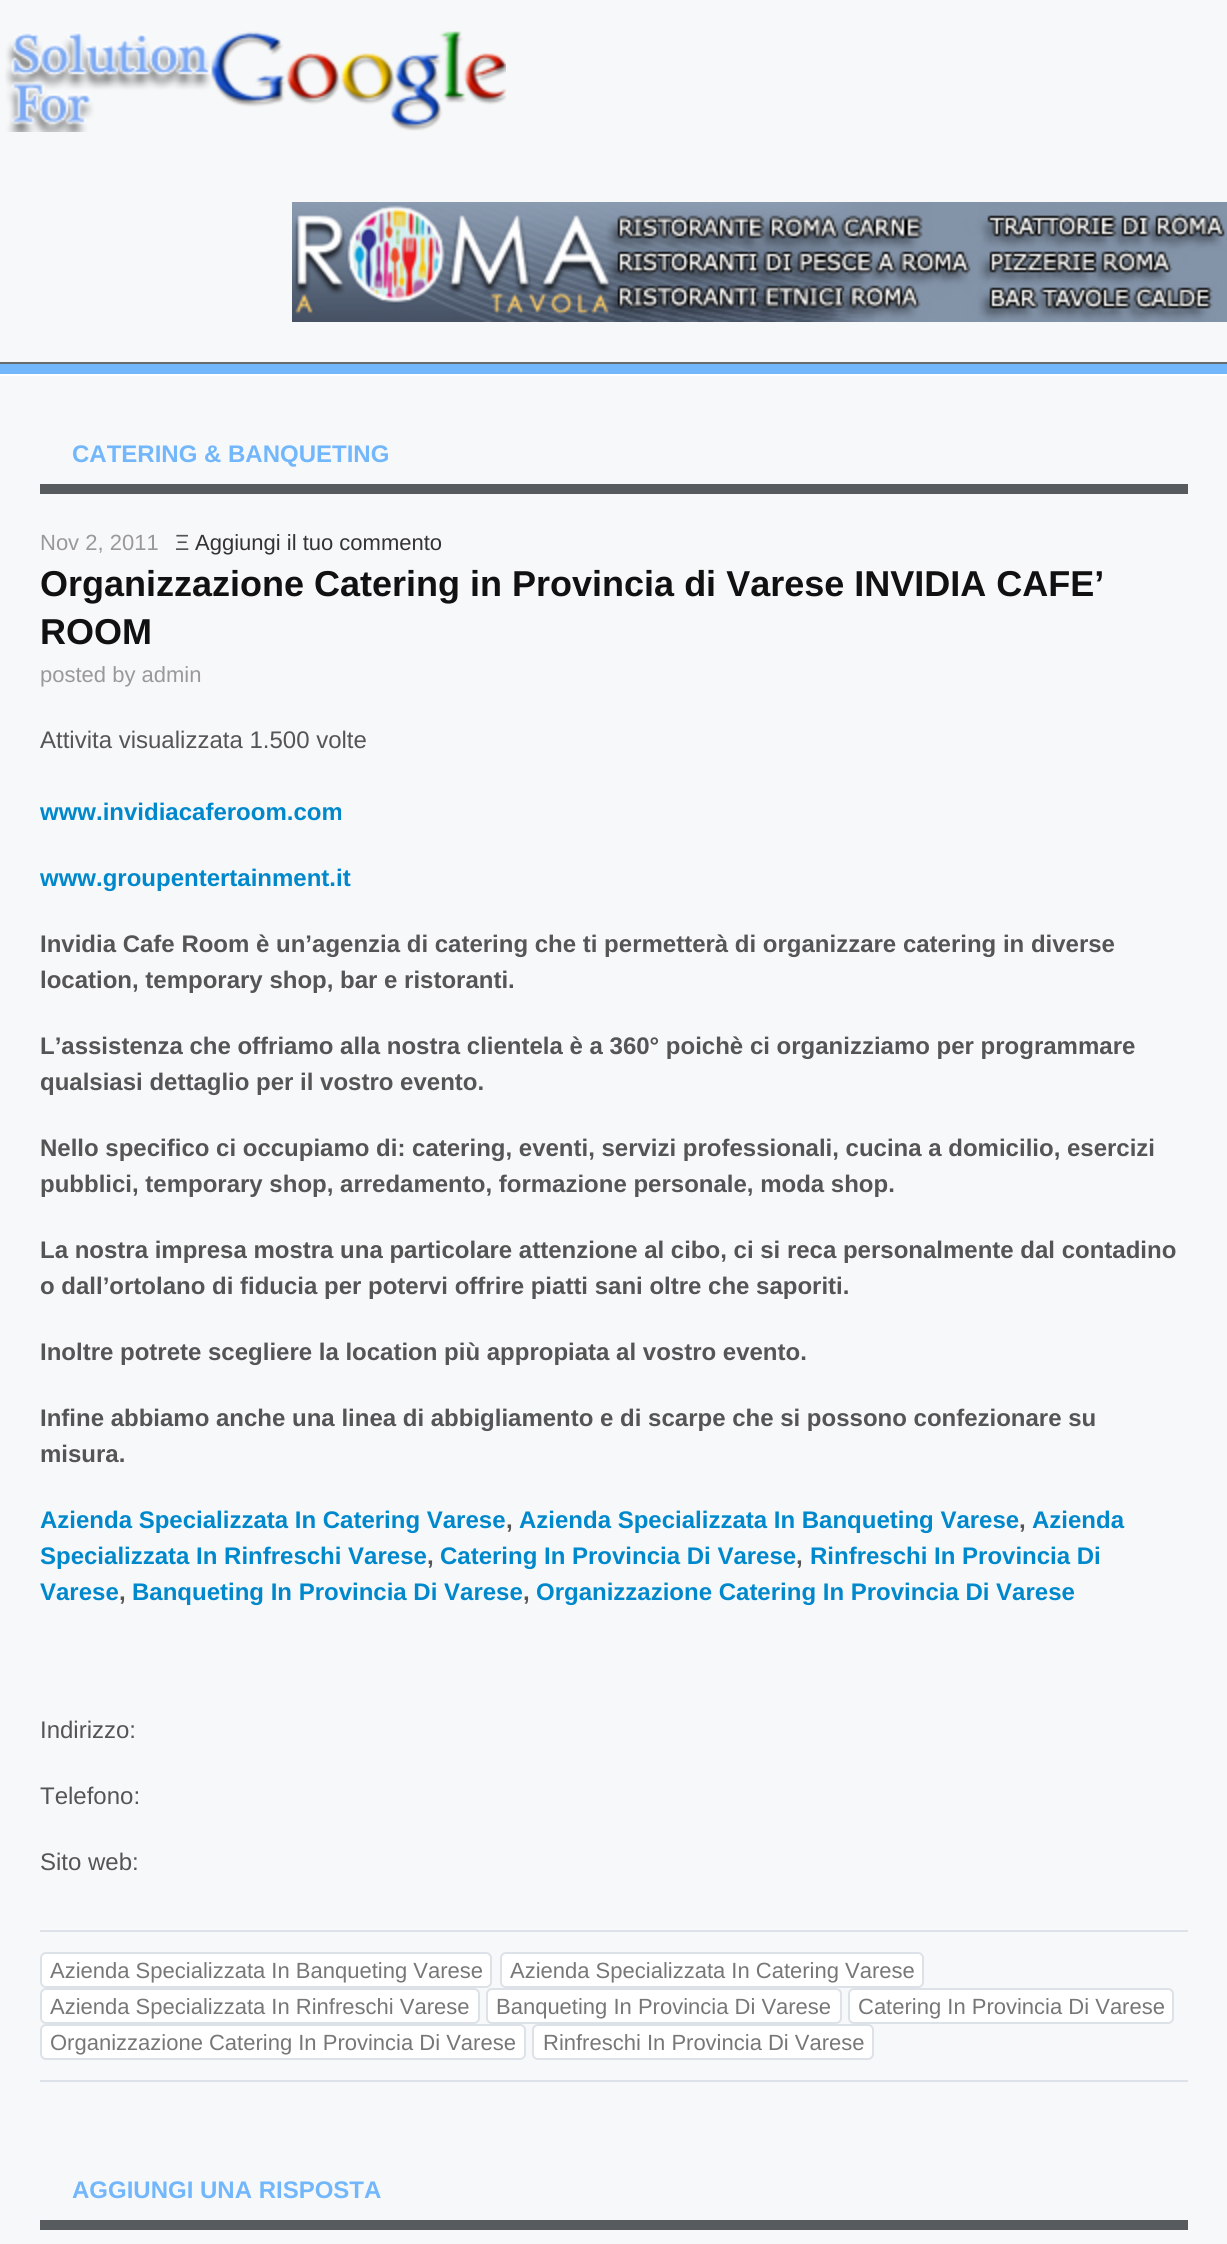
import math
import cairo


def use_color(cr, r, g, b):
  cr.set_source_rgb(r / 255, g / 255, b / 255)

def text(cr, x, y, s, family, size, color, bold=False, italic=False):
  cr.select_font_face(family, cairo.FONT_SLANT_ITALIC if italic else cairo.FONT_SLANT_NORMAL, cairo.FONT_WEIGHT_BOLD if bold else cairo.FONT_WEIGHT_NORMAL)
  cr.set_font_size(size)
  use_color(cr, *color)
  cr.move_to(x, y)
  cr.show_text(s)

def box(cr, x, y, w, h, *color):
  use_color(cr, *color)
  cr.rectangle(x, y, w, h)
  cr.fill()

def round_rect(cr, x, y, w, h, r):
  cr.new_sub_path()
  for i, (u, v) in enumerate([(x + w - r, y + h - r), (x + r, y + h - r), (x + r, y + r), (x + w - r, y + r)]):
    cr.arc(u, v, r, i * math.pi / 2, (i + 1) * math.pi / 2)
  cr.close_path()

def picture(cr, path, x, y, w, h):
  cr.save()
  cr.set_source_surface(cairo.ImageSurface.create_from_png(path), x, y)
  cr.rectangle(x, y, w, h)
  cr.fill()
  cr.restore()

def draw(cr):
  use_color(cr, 247, 248, 249)
  cr.paint()
  picture(cr, "img_01.png", 5, 31, 501, 101)
  picture(cr, "img_02.png", 292, 202, 935, 120)
  box(cr, 0, 362, 1227, 2, 102, 107, 110)
  box(cr, 0, 364, 1227, 10, 114, 183, 252)
  box(cr, 0, 374, 1227, 2, 255, 255, 255)
  box(cr, 40, 484, 1148, 10, 87, 91, 94)
  box(cr, 40, 1930, 1148, 2, 220, 226, 231)
  use_color(cr, 255, 255, 255)
  round_rect(cr, 41, 1953, 450, 34, 5)
  cr.fill_preserve()
  use_color(cr, 220, 226, 231)
  cr.stroke()
  use_color(cr, 255, 255, 255)
  round_rect(cr, 501, 1953, 422, 34, 5)
  cr.fill_preserve()
  use_color(cr, 220, 226, 231)
  cr.stroke()
  use_color(cr, 255, 255, 255)
  round_rect(cr, 41, 1989, 438, 34, 5)
  cr.fill_preserve()
  use_color(cr, 220, 226, 231)
  cr.stroke()
  use_color(cr, 255, 255, 255)
  round_rect(cr, 487, 1989, 354, 34, 5)
  cr.fill_preserve()
  use_color(cr, 220, 226, 231)
  cr.stroke()
  use_color(cr, 255, 255, 255)
  round_rect(cr, 849, 1989, 324, 34, 5)
  cr.fill_preserve()
  use_color(cr, 220, 226, 231)
  cr.stroke()
  use_color(cr, 255, 255, 255)
  round_rect(cr, 41, 2025, 484, 34, 5)
  cr.fill_preserve()
  use_color(cr, 220, 226, 231)
  cr.stroke()
  use_color(cr, 255, 255, 255)
  round_rect(cr, 533, 2025, 340, 34, 5)
  cr.fill_preserve()
  use_color(cr, 220, 226, 231)
  cr.stroke()
  box(cr, 40, 2080, 1148, 2, 220, 226, 231)
  box(cr, 40, 2220, 1148, 10, 87, 91, 94)
  text(cr, 72, 462, "CATERING & BANQUETING", "Liberation Sans", 24, (114, 183, 252), bold=True)
  text(cr, 40, 550, "Nov 2, 2011", "Liberation Sans", 22, (153, 153, 153))
  text(cr, 175, 550, "Ξ", "Liberation Sans", 22, (85, 85, 85))
  text(cr, 195, 550, "Aggiungi il tuo commento", "Liberation Sans", 22, (51, 51, 51))
  text(cr, 40, 596, "Organizzazione Catering in Provincia di Varese INVIDIA CAFE’", "Liberation Sans", 36, (17, 17, 17), bold=True)
  text(cr, 40, 644, "ROOM", "Liberation Sans", 36, (17, 17, 17), bold=True)
  text(cr, 40, 682, "posted by admin", "Liberation Sans", 22, (153, 153, 153))
  text(cr, 40, 748, "Attivita visualizzata 1.500 volte", "Liberation Sans", 24, (85, 85, 85))
  text(cr, 40, 820, "www.invidiacaferoom.com", "Liberation Sans", 24, (0, 136, 204), bold=True)
  text(cr, 40, 886, "www.groupentertainment.it", "Liberation Sans", 24, (0, 136, 204), bold=True)
  text(cr, 40, 952, "Invidia Cafe Room è un’agenzia di catering che ti permetterà di organizzare catering in diverse", "Liberation Sans", 24, (85, 85, 85), bold=True)
  text(cr, 40, 988, "location, temporary shop, bar e ristoranti.", "Liberation Sans", 24, (85, 85, 85), bold=True)
  text(cr, 40, 1054, "L’assistenza che offriamo alla nostra clientela è a 360° poichè ci organizziamo per programmare", "Liberation Sans", 24, (85, 85, 85), bold=True)
  text(cr, 40, 1090, "qualsiasi dettaglio per il vostro evento.", "Liberation Sans", 24, (85, 85, 85), bold=True)
  text(cr, 40, 1156, "Nello specifico ci occupiamo di: catering, eventi, servizi professionali, cucina a domicilio, esercizi", "Liberation Sans", 24, (85, 85, 85), bold=True)
  text(cr, 40, 1192, "pubblici, temporary shop, arredamento, formazione personale, moda shop.", "Liberation Sans", 24, (85, 85, 85), bold=True)
  text(cr, 40, 1258, "La nostra impresa mostra una particolare attenzione al cibo, ci si reca personalmente dal contadino", "Liberation Sans", 24, (85, 85, 85), bold=True)
  text(cr, 40, 1294, "o dall’ortolano di fiducia per potervi offrire piatti sani oltre che saporiti.", "Liberation Sans", 24, (85, 85, 85), bold=True)
  text(cr, 40, 1360, "Inoltre potrete scegliere la location più appropiata al vostro evento.", "Liberation Sans", 24, (85, 85, 85), bold=True)
  text(cr, 40, 1426, "Infine abbiamo anche una linea di abbigliamento e di scarpe che si possono confezionare su", "Liberation Sans", 24, (85, 85, 85), bold=True)
  text(cr, 40, 1462, "misura.", "Liberation Sans", 24, (85, 85, 85), bold=True)
  text(cr, 40, 1528, "Azienda Specializzata In Catering Varese", "Liberation Sans", 24, (0, 136, 204), bold=True)
  text(cr, 506, 1528, ",", "Liberation Sans", 24, (85, 85, 85), bold=True)
  text(cr, 519, 1528, "Azienda Specializzata In Banqueting Varese", "Liberation Sans", 24, (0, 136, 204), bold=True)
  text(cr, 1019, 1528, ",", "Liberation Sans", 24, (85, 85, 85), bold=True)
  text(cr, 1032, 1528, "Azienda", "Liberation Sans", 24, (0, 136, 204), bold=True)
  text(cr, 40, 1564, "Specializzata In Rinfreschi Varese", "Liberation Sans", 24, (0, 136, 204), bold=True)
  text(cr, 427, 1564, ",", "Liberation Sans", 24, (85, 85, 85), bold=True)
  text(cr, 440, 1564, "Catering In Provincia Di Varese", "Liberation Sans", 24, (0, 136, 204), bold=True)
  text(cr, 796, 1564, ",", "Liberation Sans", 24, (85, 85, 85), bold=True)
  text(cr, 810, 1564, "Rinfreschi In Provincia Di", "Liberation Sans", 24, (0, 136, 204), bold=True)
  text(cr, 40, 1600, "Varese", "Liberation Sans", 24, (0, 136, 204), bold=True)
  text(cr, 119, 1600, ",", "Liberation Sans", 24, (85, 85, 85), bold=True)
  text(cr, 132, 1600, "Banqueting In Provincia Di Varese", "Liberation Sans", 24, (0, 136, 204), bold=True)
  text(cr, 523, 1600, ",", "Liberation Sans", 24, (85, 85, 85), bold=True)
  text(cr, 536, 1600, "Organizzazione Catering In Provincia Di Varese", "Liberation Sans", 24, (0, 136, 204), bold=True)
  text(cr, 40, 1738, "Indirizzo:", "Liberation Sans", 24, (85, 85, 85))
  text(cr, 40, 1804, "Telefono:", "Liberation Sans", 24, (85, 85, 85))
  text(cr, 40, 1870, "Sito web:", "Liberation Sans", 24, (85, 85, 85))
  text(cr, 50, 1978, "Azienda Specializzata In Banqueting Varese", "Liberation Sans", 22, (119, 119, 119))
  text(cr, 510, 1978, "Azienda Specializzata In Catering Varese", "Liberation Sans", 22, (119, 119, 119))
  text(cr, 50, 2014, "Azienda Specializzata In Rinfreschi Varese", "Liberation Sans", 22, (119, 119, 119))
  text(cr, 496, 2014, "Banqueting In Provincia Di Varese", "Liberation Sans", 22, (119, 119, 119))
  text(cr, 858, 2014, "Catering In Provincia Di Varese", "Liberation Sans", 22, (119, 119, 119))
  text(cr, 50, 2050, "Organizzazione Catering In Provincia Di Varese", "Liberation Sans", 22, (119, 119, 119))
  text(cr, 543, 2050, "Rinfreschi In Provincia Di Varese", "Liberation Sans", 22, (119, 119, 119))
  text(cr, 72, 2198, "AGGIUNGI UNA RISPOSTA", "Liberation Sans", 24, (114, 183, 252), bold=True)


surface = cairo.ImageSurface(cairo.FORMAT_RGB24, 1227, 2244)
cr = cairo.Context(surface)
options = cairo.FontOptions()
options.set_hint_metrics(cairo.HINT_METRICS_OFF)
options.set_hint_style(cairo.HINT_STYLE_NONE)
cr.set_font_options(options)
cr.set_miter_limit(4)
draw(cr)
surface.write_to_png("out.png")
